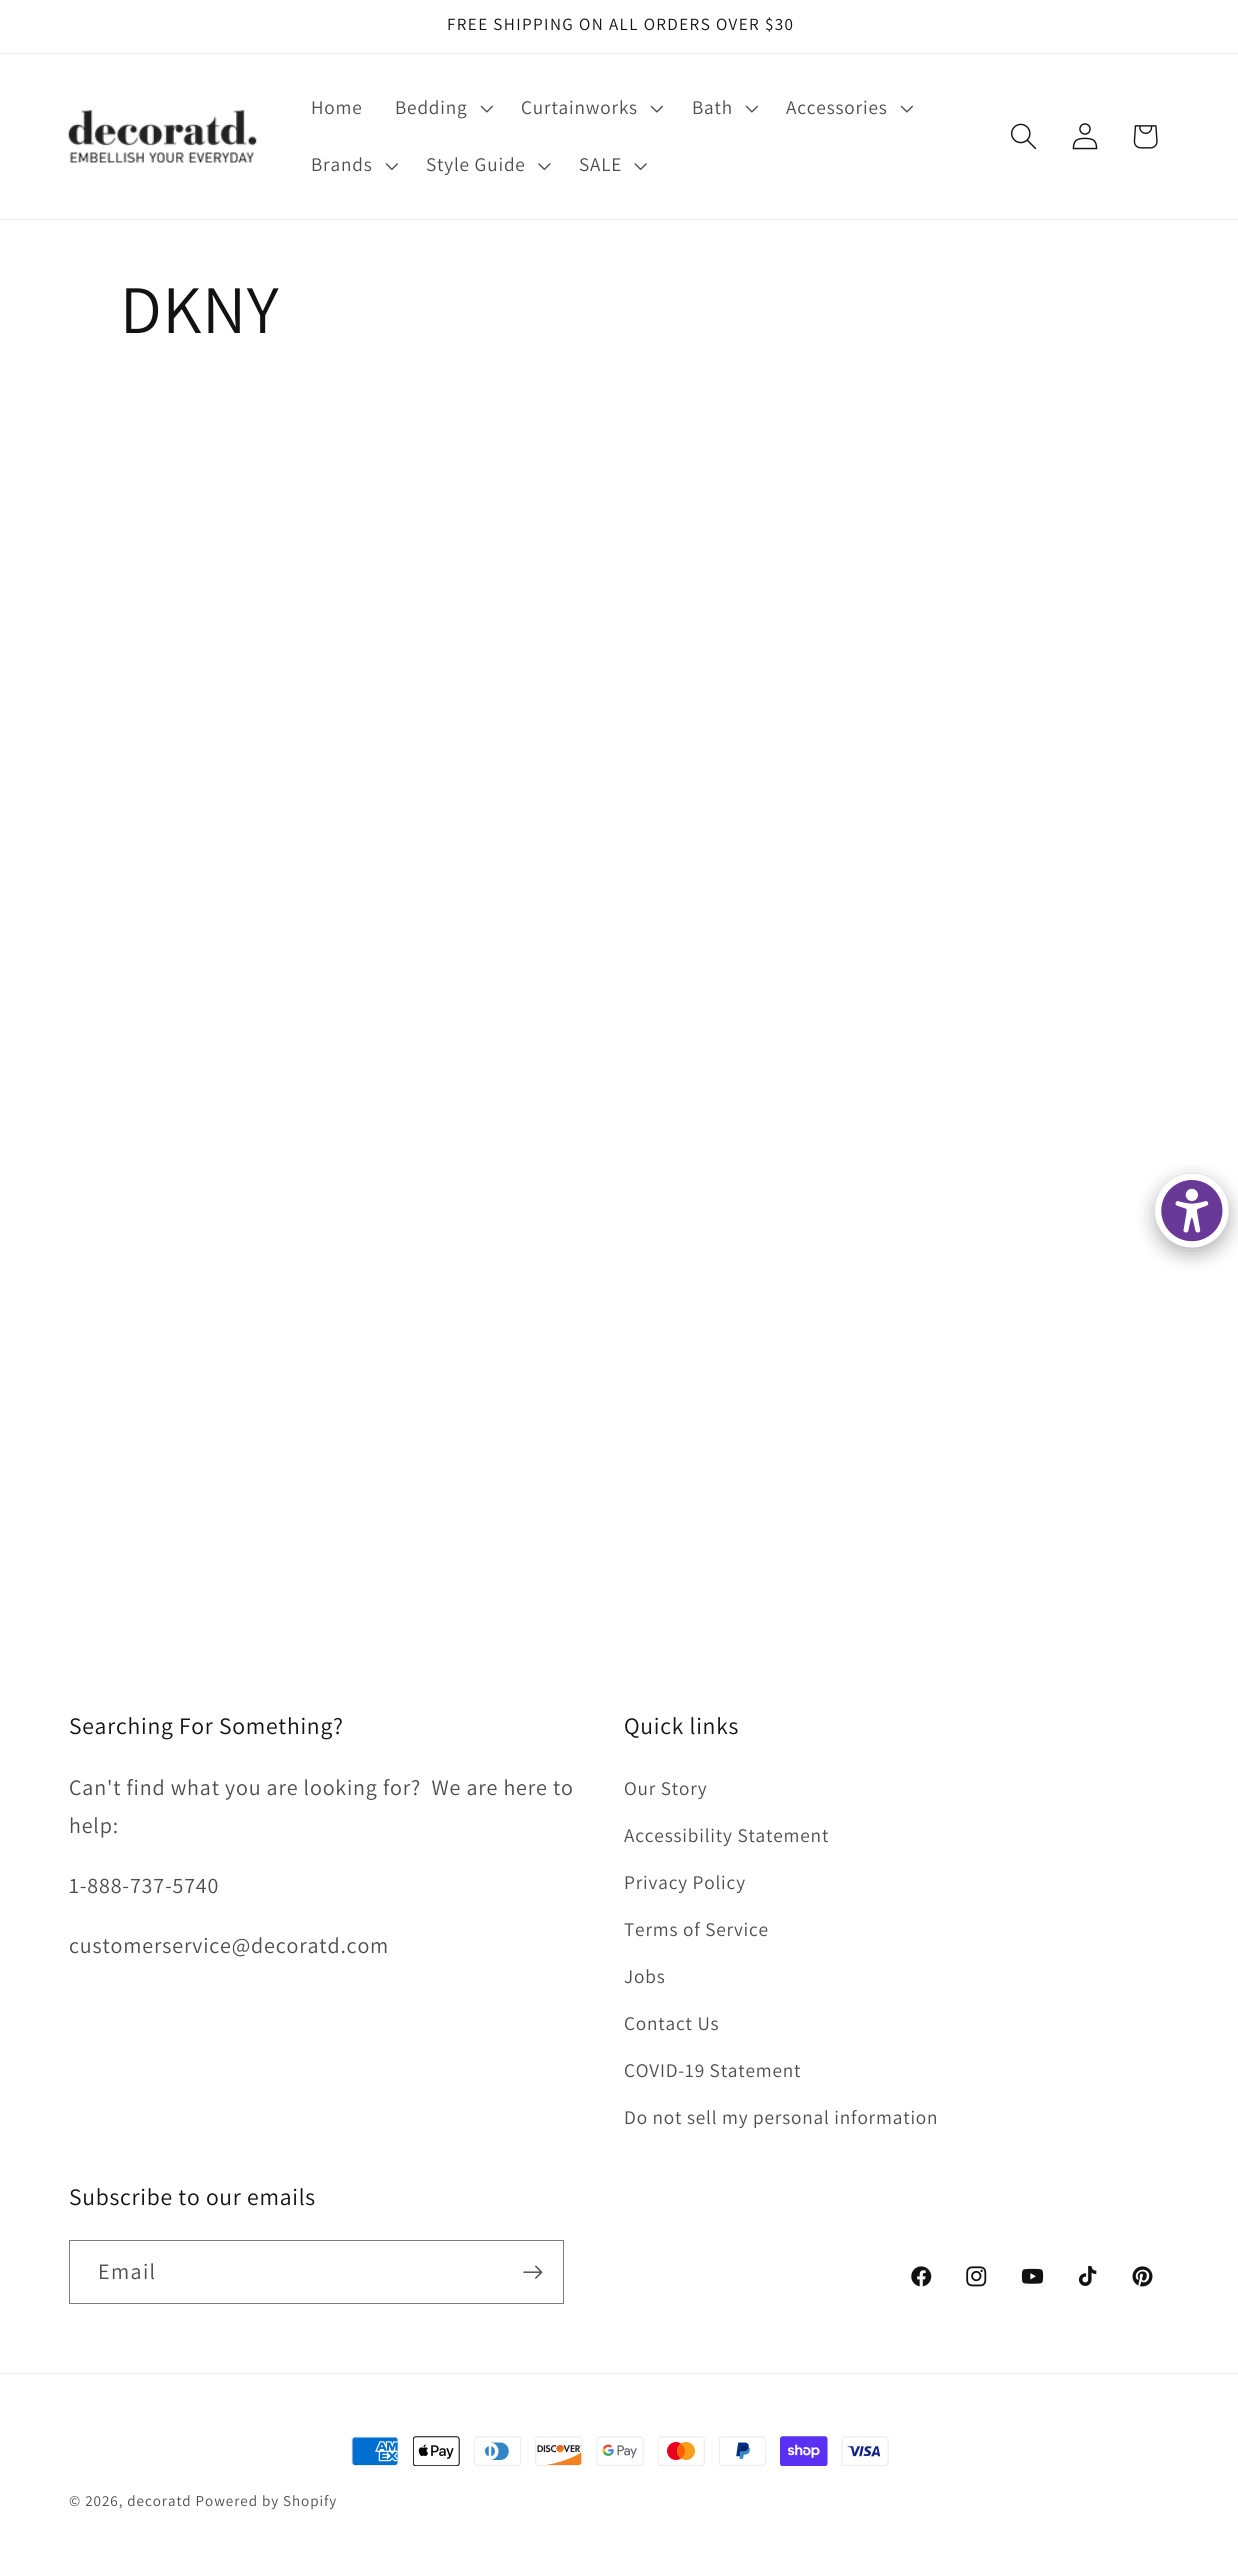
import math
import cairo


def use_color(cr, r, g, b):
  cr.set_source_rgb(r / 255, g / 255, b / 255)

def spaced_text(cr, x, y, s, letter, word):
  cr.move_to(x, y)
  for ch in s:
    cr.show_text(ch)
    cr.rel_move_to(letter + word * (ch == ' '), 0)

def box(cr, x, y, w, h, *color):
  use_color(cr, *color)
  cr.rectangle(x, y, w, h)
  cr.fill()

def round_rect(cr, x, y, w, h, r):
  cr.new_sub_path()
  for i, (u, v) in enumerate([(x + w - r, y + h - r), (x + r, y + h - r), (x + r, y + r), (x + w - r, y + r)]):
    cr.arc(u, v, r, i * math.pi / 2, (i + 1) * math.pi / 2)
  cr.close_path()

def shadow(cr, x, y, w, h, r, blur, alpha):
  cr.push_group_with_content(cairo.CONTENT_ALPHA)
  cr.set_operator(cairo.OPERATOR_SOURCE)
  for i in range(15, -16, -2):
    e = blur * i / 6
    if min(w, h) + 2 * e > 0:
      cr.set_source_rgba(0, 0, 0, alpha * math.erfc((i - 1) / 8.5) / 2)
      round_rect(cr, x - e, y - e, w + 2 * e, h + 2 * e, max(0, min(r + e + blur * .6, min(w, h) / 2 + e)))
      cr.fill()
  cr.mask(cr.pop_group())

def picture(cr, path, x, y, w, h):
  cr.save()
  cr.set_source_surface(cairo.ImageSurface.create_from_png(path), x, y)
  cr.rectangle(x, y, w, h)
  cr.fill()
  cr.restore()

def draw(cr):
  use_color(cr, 255, 255, 255)
  cr.paint()
  box(cr, 0, 53, 1238, 1, 236, 236, 236)
  box(cr, 0, 219, 1238, 1, 236, 236, 236)
  picture(cr, "img_01.png", 68, 110, 189, 53)
  picture(cr, "img_02.png", 480, 105, 13, 8)
  picture(cr, "img_02.png", 650, 105, 13, 8)
  picture(cr, "img_02.png", 745, 105, 13, 8)
  picture(cr, "img_02.png", 900, 105, 13, 8)
  picture(cr, "img_03.png", 385, 163, 13, 7)
  picture(cr, "img_04.png", 538, 163, 13, 7)
  picture(cr, "img_05.png", 634, 163, 13, 7)
  picture(cr, "img_06.png", 1010, 123, 27, 27)
  picture(cr, "img_07.png", 1072, 123, 26, 27)
  picture(cr, "img_08.png", 1133, 125, 25, 24)
  cr.rectangle(69.5, 2240.5, 494, 63)
  use_color(cr, 125, 125, 125)
  cr.set_line_width(1)
  cr.stroke()
  picture(cr, "img_09.png", 523, 2265, 20, 14)
  picture(cr, "img_10.png", 911, 2266, 21, 21)
  picture(cr, "img_11.png", 966, 2266, 21, 21)
  picture(cr, "img_12.png", 1021, 2268, 23, 16)
  picture(cr, "img_13.png", 1078, 2266, 19, 20)
  picture(cr, "img_14.png", 1132, 2266, 21, 21)
  box(cr, 0, 2373, 1238, 1, 236, 236, 236)
  picture(cr, "img_15.png", 351, 2436, 48, 30)
  picture(cr, "img_16.png", 413, 2436, 47, 30)
  picture(cr, "img_17.png", 474, 2436, 47, 30)
  picture(cr, "img_18.png", 535, 2436, 48, 30)
  picture(cr, "img_19.png", 596, 2436, 48, 30)
  picture(cr, "img_20.png", 658, 2436, 47, 30)
  picture(cr, "img_21.png", 719, 2436, 47, 30)
  picture(cr, "img_22.png", 780, 2436, 48, 30)
  picture(cr, "img_23.png", 841, 2436, 48, 30)
  use_color(cr, 0, 0, 0)
  shadow(cr, 1155, 1180, 74, 74, 37, 9.5, 0.3)
  picture(cr, "img_24.png", 1155, 1174, 74, 74)
  cr.select_font_face("Assistant")
  cr.set_font_size(17.1)
  use_color(cr, 18, 18, 18)
  spaced_text(cr, 447, 30, "FREE SHIPPING ON ALL ORDERS OVER $30", 1.4, 0)
  cr.set_font_size(19.25)
  use_color(cr, 77, 77, 77)
  spaced_text(cr, 311, 114, "Home", 0.83, 0)
  spaced_text(cr, 395, 114, "Bedding", 0.83, 0)
  spaced_text(cr, 521, 114, "Curtainworks", 0.83, 0)
  spaced_text(cr, 692, 114, "Bath", 0.83, 0)
  spaced_text(cr, 786, 114, "Accessories", 0.83, 0)
  spaced_text(cr, 311, 171, "Brands", 0.83, 0)
  spaced_text(cr, 426, 171, "Style Guide", 0.83, 0)
  spaced_text(cr, 579, 171, "SALE", 0.83, 0)
  cr.set_font_size(68)
  use_color(cr, 18, 18, 18)
  spaced_text(cr, 120, 333, "DKNY", 0.75, 0)
  cr.set_font_size(23.6)
  spaced_text(cr, 69, 1734, "Searching For Something?", 0.75, 0)
  cr.set_font_size(22)
  use_color(cr, 77, 77, 77)
  spaced_text(cr, 69, 1795, "Can't find what you are looking for?  We are here to", 0.83, 0)
  spaced_text(cr, 69, 1833, "help:", 0.83, 0)
  spaced_text(cr, 69, 1893, "1-888-737-5740", 0.83, 0)
  spaced_text(cr, 69, 1953, "customerservice@decoratd.com", 0.83, 0)
  cr.set_font_size(23.6)
  use_color(cr, 18, 18, 18)
  spaced_text(cr, 624, 1734, "Quick links", 0.75, 0)
  cr.set_font_size(19.25)
  use_color(cr, 77, 77, 77)
  spaced_text(cr, 624, 1795, "Our Story", 0.83, 0)
  spaced_text(cr, 624, 1842, "Accessibility Statement", 0.83, 0)
  spaced_text(cr, 624, 1889, "Privacy Policy", 0.83, 0)
  spaced_text(cr, 624, 1936, "Terms of Service", 0.83, 0)
  spaced_text(cr, 624, 1983, "Jobs", 0.83, 0)
  spaced_text(cr, 624, 2030, "Contact Us", 0.83, 0)
  spaced_text(cr, 624, 2077, "COVID-19 Statement", 0.83, 0)
  spaced_text(cr, 624, 2124, "Do not sell my personal information", 0.83, 0)
  cr.set_font_size(23.6)
  use_color(cr, 18, 18, 18)
  spaced_text(cr, 69, 2205, "Subscribe to our emails", 0.75, 0)
  cr.set_font_size(22)
  use_color(cr, 77, 77, 77)
  spaced_text(cr, 98, 2279, "Email", 1.4, 0)
  cr.set_font_size(15.1)
  spaced_text(cr, 69, 2506, "© 2026, decoratd Powered by Shopify", 0.95, 0)


surface = cairo.ImageSurface(cairo.FORMAT_RGB24, 1238, 2558)
cr = cairo.Context(surface)
options = cairo.FontOptions()
options.set_hint_metrics(cairo.HINT_METRICS_OFF)
options.set_hint_style(cairo.HINT_STYLE_NONE)
cr.set_font_options(options)
cr.set_miter_limit(4)
draw(cr)
surface.write_to_png("out.png")
